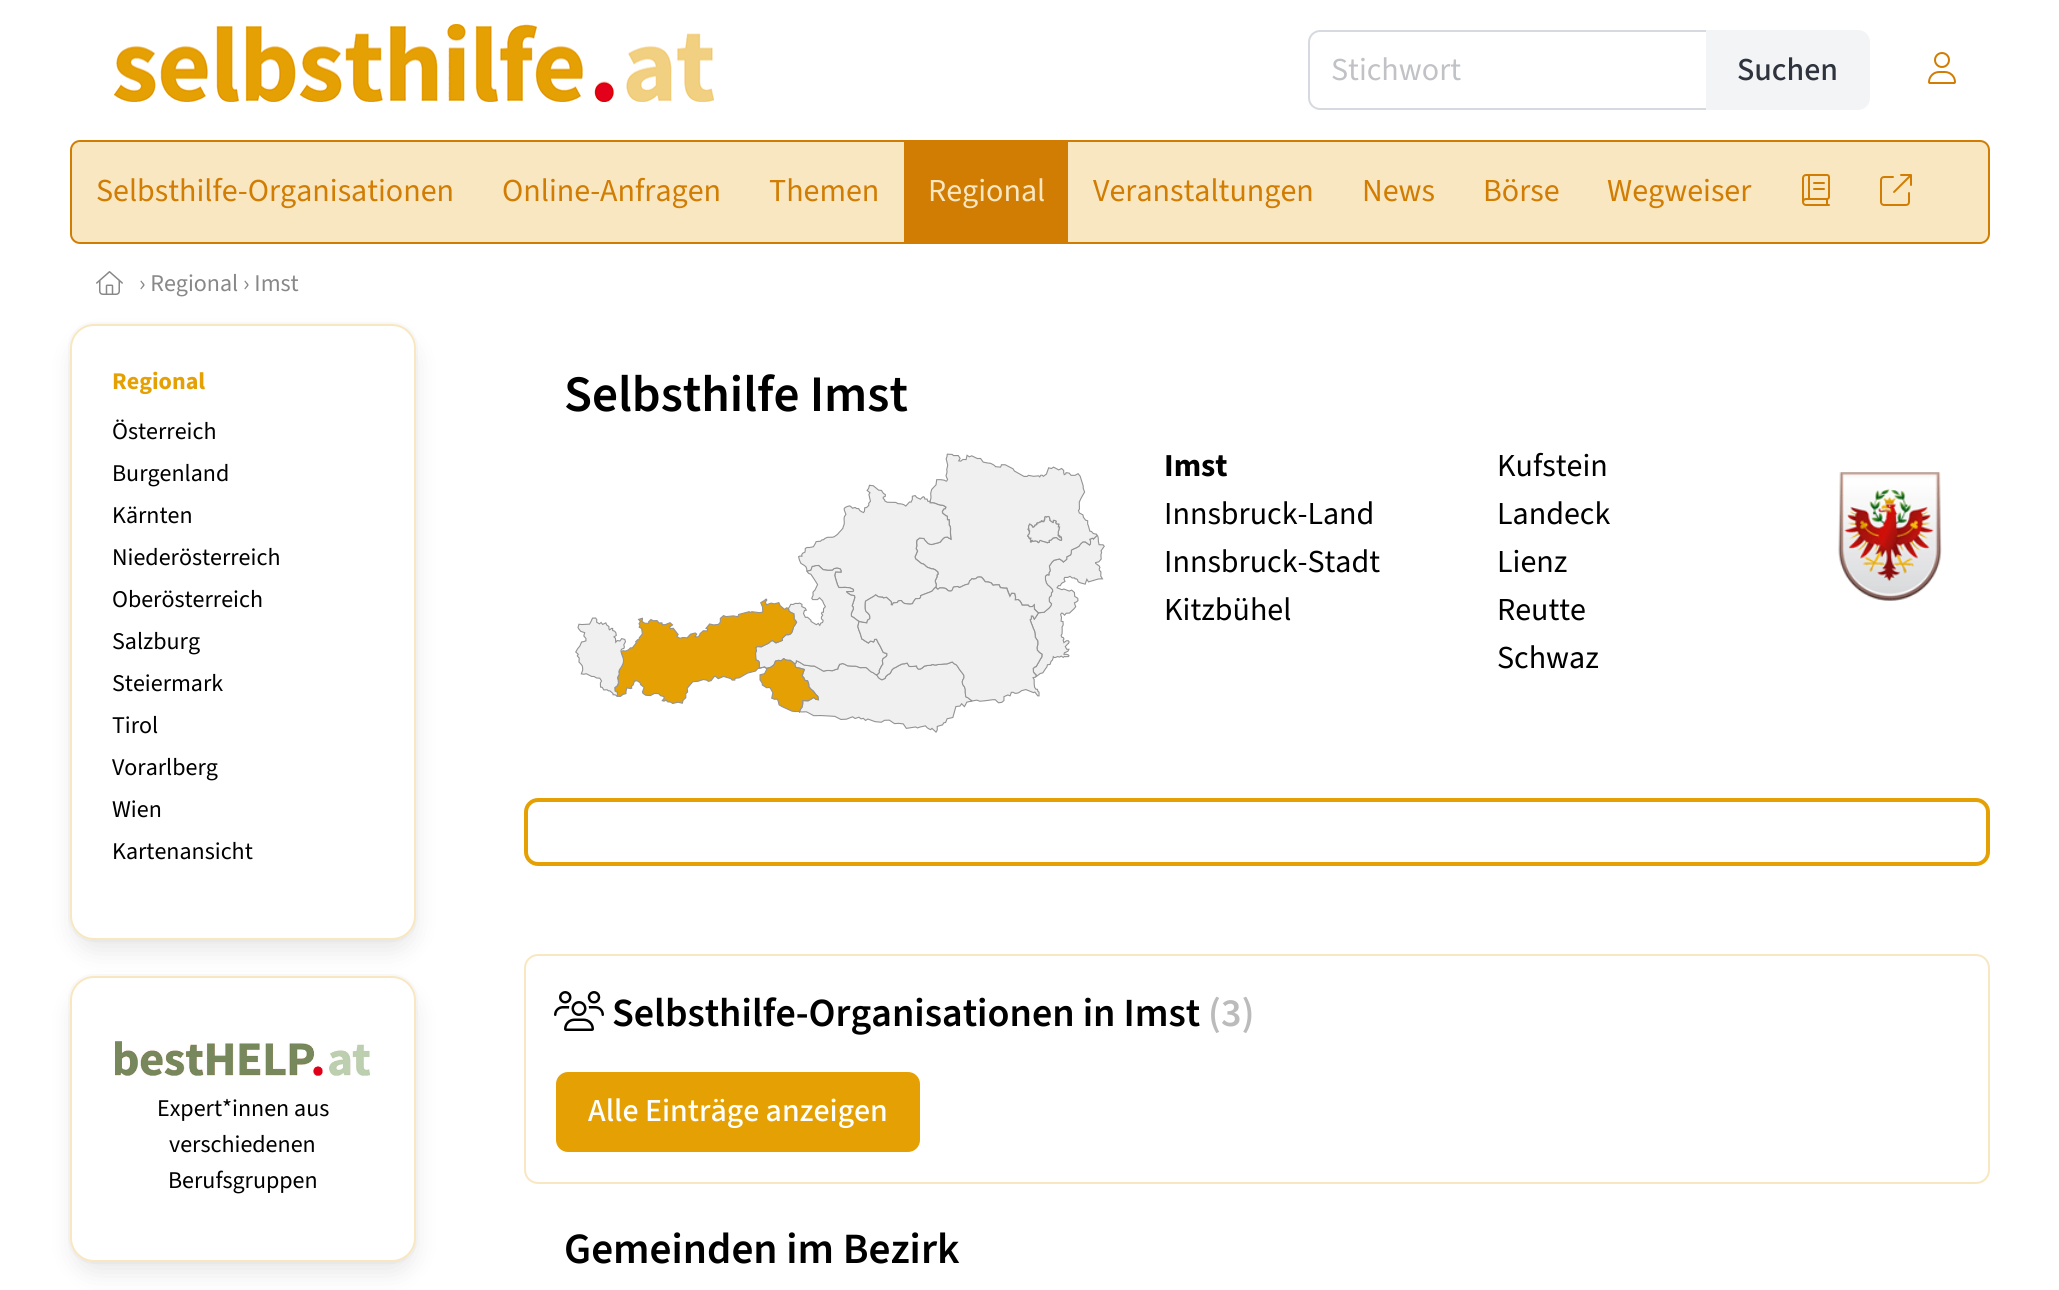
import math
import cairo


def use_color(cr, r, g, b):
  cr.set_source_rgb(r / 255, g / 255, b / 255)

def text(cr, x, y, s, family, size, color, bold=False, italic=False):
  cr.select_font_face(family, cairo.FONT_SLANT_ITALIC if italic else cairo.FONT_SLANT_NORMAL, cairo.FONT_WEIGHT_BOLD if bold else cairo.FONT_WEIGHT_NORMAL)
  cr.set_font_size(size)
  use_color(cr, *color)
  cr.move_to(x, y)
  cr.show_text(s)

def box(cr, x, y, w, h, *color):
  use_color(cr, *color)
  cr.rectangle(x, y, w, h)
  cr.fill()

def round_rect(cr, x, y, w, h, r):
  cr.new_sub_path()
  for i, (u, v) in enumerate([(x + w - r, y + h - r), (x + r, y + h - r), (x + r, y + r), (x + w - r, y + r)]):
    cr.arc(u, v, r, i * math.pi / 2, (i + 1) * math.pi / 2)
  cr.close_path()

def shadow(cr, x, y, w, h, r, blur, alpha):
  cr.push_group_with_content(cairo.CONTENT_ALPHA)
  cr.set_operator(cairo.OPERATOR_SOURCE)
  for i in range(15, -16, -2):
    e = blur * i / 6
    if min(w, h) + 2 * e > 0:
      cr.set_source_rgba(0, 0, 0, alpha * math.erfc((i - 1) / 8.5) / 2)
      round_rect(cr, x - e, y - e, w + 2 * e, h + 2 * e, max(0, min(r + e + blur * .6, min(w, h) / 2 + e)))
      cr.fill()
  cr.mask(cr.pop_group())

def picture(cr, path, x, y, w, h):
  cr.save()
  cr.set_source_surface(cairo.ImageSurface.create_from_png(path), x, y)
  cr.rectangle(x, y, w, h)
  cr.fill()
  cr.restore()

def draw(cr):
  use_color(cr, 255, 255, 255)
  cr.paint()
  picture(cr, "img_01.png", 114, 24, 600, 78)
  cr.new_path()
  cr.move_to(1320, 31)
  cr.line_to(1707, 31)
  cr.line_to(1707, 109)
  cr.line_to(1320, 109)
  cr.curve_to(1314, 109, 1309, 104, 1309, 98)
  cr.line_to(1309, 42)
  cr.curve_to(1309, 36, 1314, 31, 1320, 31)
  cr.close_path()
  use_color(cr, 214, 217, 224)
  cr.stroke()
  use_color(cr, 243, 244, 246)
  cr.new_path()
  cr.move_to(1706, 30)
  cr.line_to(1858, 30)
  cr.curve_to(1864.5, 30, 1870, 35.5, 1870, 42)
  cr.line_to(1870, 98)
  cr.curve_to(1870, 104.5, 1864.5, 110, 1858, 110)
  cr.line_to(1706, 110)
  cr.close_path()
  cr.fill()
  picture(cr, "img_02.png", 1928, 52, 28, 32)
  use_color(cr, 248, 231, 192)
  round_rect(cr, 71, 141, 1918, 102, 9)
  cr.fill_preserve()
  use_color(cr, 209, 124, 2)
  cr.stroke()
  use_color(cr, 248, 231, 192)
  cr.new_path()
  cr.move_to(82, 142)
  cr.line_to(478, 142)
  cr.line_to(478, 242)
  cr.line_to(82, 242)
  cr.curve_to(76.5, 242, 72, 237.5, 72, 232)
  cr.line_to(72, 152)
  cr.curve_to(72, 146.5, 76.5, 142, 82, 142)
  cr.close_path()
  cr.fill()
  box(cr, 904, 142, 164, 100, 209, 124, 2)
  picture(cr, "img_03.png", 1802, 174, 28, 32)
  picture(cr, "img_04.png", 1880, 174, 32, 32)
  picture(cr, "img_05.png", 96, 271, 27, 24)
  round_rect(cr, 69, 323, 348, 618, 25)
  use_color(cr, 250, 250, 250)
  cr.stroke()
  use_color(cr, 9, 10, 12)
  shadow(cr, 74, 340, 340, 610, 22, 12, 0.1)
  use_color(cr, 255, 255, 255)
  round_rect(cr, 71, 325, 344, 614, 23)
  cr.fill_preserve()
  use_color(cr, 248, 231, 192)
  cr.stroke()
  round_rect(cr, 69, 975, 348, 288, 25)
  use_color(cr, 250, 250, 250)
  cr.stroke()
  use_color(cr, 9, 10, 12)
  shadow(cr, 74, 992, 340, 280, 22, 12, 0.1)
  use_color(cr, 255, 255, 255)
  round_rect(cr, 71, 977, 344, 284, 23)
  cr.fill_preserve()
  use_color(cr, 248, 231, 192)
  cr.stroke()
  picture(cr, "img_06.png", 115, 1041, 255, 35)
  picture(cr, "img_07.png", 575, 453, 530, 280)
  picture(cr, "img_08.png", 1838, 472, 104, 129)
  round_rect(cr, 526, 800, 1462, 64, 12)
  use_color(cr, 229, 160, 3)
  cr.set_line_width(4)
  cr.stroke()
  round_rect(cr, 525, 955, 1464, 228, 13)
  use_color(cr, 248, 231, 192)
  cr.set_line_width(2)
  cr.stroke()
  picture(cr, "img_09.png", 554, 991, 50, 40)
  use_color(cr, 229, 160, 3)
  round_rect(cr, 556, 1072, 364, 80, 12)
  cr.fill()
  text(cr, 1331, 80, "Stichwort", "Source Sans 3", 32, (192, 194, 197))
  text(cr, 1737, 80, "Suchen", "Source Sans 3 Medium", 32, (46, 51, 61))
  text(cr, 96, 201, "Selbsthilfe-Organisationen", "Source Sans 3", 32, (209, 124, 2))
  text(cr, 502, 201, "Online-Anfragen", "Source Sans 3", 32, (209, 124, 2))
  text(cr, 769, 201, "Themen", "Source Sans 3", 32, (209, 124, 2))
  text(cr, 928, 201, "Regional", "Source Sans 3", 32, (248, 231, 192))
  text(cr, 1093, 201, "Veranstaltungen", "Source Sans 3", 32, (209, 124, 2))
  text(cr, 1362, 201, "News", "Source Sans 3", 32, (209, 124, 2))
  text(cr, 1483, 201, "Börse", "Source Sans 3", 32, (209, 124, 2))
  text(cr, 1607, 201, "Wegweiser", "Source Sans 3", 32, (209, 124, 2))
  text(cr, 139, 291, "› Regional › Imst", "Source Sans 3", 24, (136, 136, 136))
  text(cr, 112, 389, "Regional", "Source Sans 3", 24, (229, 160, 3), bold=True)
  text(cr, 112, 439, "Österreich", "Source Sans 3", 24, (0, 0, 0))
  text(cr, 112, 481, "Burgenland", "Source Sans 3", 24, (0, 0, 0))
  text(cr, 112, 523, "Kärnten", "Source Sans 3", 24, (0, 0, 0))
  text(cr, 112, 565, "Niederösterreich", "Source Sans 3", 24, (0, 0, 0))
  text(cr, 112, 607, "Oberösterreich", "Source Sans 3", 24, (0, 0, 0))
  text(cr, 112, 649, "Salzburg", "Source Sans 3", 24, (0, 0, 0))
  text(cr, 112, 691, "Steiermark", "Source Sans 3", 24, (0, 0, 0))
  text(cr, 112, 733, "Tirol", "Source Sans 3", 24, (0, 0, 0))
  text(cr, 112, 775, "Vorarlberg", "Source Sans 3", 24, (0, 0, 0))
  text(cr, 112, 817, "Wien", "Source Sans 3", 24, (0, 0, 0))
  text(cr, 112, 859, "Kartenansicht", "Source Sans 3", 24, (0, 0, 0))
  text(cr, 157, 1116, "Expert*innen aus", "Source Sans 3", 24, (0, 0, 0))
  text(cr, 169, 1152, "verschiedenen", "Source Sans 3", 24, (0, 0, 0))
  text(cr, 168, 1188, "Berufsgruppen", "Source Sans 3", 24, (0, 0, 0))
  text(cr, 564, 411, "Selbsthilfe Imst", "Source Sans 3 SemiBold", 51.25, (0, 0, 0))
  text(cr, 1164, 476, "Imst", "Source Sans 3", 32, (0, 0, 0), bold=True)
  text(cr, 1164, 524, "Innsbruck-Land", "Source Sans 3", 32, (0, 0, 0))
  text(cr, 1164, 572, "Innsbruck-Stadt", "Source Sans 3", 32, (0, 0, 0))
  text(cr, 1164, 620, "Kitzbühel", "Source Sans 3", 32, (0, 0, 0))
  text(cr, 1497, 476, "Kufstein", "Source Sans 3", 32, (0, 0, 0))
  text(cr, 1497, 524, "Landeck", "Source Sans 3", 32, (0, 0, 0))
  text(cr, 1497, 572, "Lienz", "Source Sans 3", 32, (0, 0, 0))
  text(cr, 1497, 620, "Reutte", "Source Sans 3", 32, (0, 0, 0))
  text(cr, 1497, 668, "Schwaz", "Source Sans 3", 32, (0, 0, 0))
  text(cr, 612, 1026, "Selbsthilfe-Organisationen in Imst", "Source Sans 3 SemiBold", 40, (0, 0, 0))
  text(cr, 1208, 1026, "(3)", "Source Sans 3 SemiBold", 40, (187, 187, 187))
  text(cr, 588, 1121, "Alle Einträge anzeigen", "Source Sans 3 Medium", 32, (255, 255, 255))
  text(cr, 564, 1263, "Gemeinden im Bezirk", "Source Sans 3 SemiBold", 43.25, (0, 0, 0))


surface = cairo.ImageSurface(cairo.FORMAT_RGB24, 2059, 1290)
cr = cairo.Context(surface)
options = cairo.FontOptions()
options.set_hint_metrics(cairo.HINT_METRICS_OFF)
options.set_hint_style(cairo.HINT_STYLE_NONE)
cr.set_font_options(options)
cr.set_miter_limit(4)
draw(cr)
surface.write_to_png("out.png")
